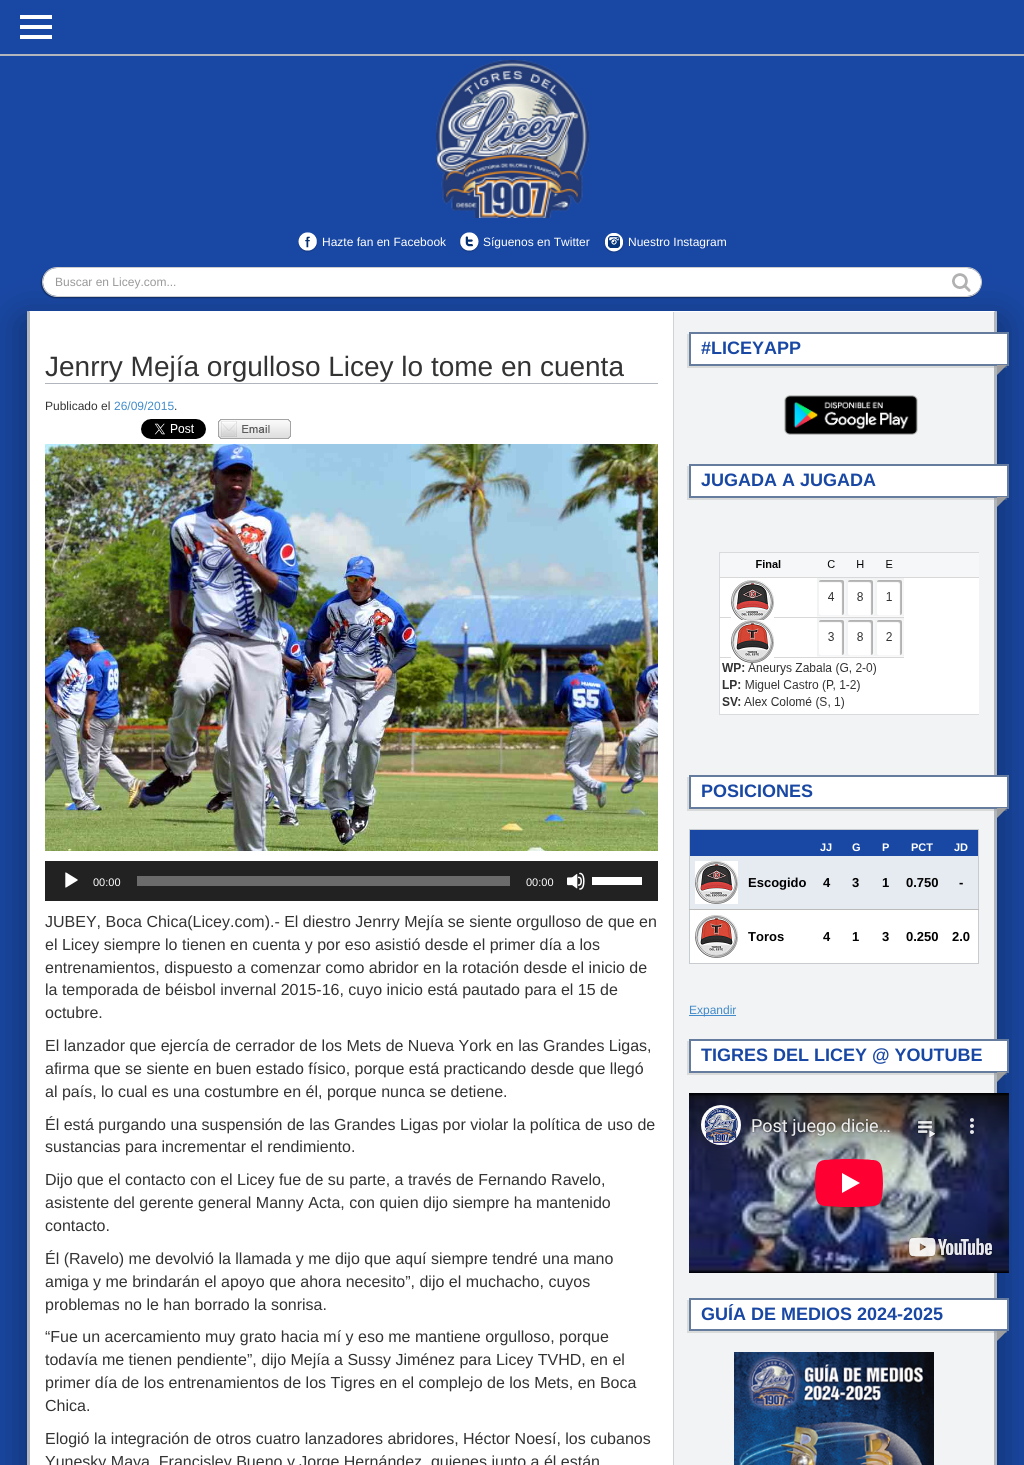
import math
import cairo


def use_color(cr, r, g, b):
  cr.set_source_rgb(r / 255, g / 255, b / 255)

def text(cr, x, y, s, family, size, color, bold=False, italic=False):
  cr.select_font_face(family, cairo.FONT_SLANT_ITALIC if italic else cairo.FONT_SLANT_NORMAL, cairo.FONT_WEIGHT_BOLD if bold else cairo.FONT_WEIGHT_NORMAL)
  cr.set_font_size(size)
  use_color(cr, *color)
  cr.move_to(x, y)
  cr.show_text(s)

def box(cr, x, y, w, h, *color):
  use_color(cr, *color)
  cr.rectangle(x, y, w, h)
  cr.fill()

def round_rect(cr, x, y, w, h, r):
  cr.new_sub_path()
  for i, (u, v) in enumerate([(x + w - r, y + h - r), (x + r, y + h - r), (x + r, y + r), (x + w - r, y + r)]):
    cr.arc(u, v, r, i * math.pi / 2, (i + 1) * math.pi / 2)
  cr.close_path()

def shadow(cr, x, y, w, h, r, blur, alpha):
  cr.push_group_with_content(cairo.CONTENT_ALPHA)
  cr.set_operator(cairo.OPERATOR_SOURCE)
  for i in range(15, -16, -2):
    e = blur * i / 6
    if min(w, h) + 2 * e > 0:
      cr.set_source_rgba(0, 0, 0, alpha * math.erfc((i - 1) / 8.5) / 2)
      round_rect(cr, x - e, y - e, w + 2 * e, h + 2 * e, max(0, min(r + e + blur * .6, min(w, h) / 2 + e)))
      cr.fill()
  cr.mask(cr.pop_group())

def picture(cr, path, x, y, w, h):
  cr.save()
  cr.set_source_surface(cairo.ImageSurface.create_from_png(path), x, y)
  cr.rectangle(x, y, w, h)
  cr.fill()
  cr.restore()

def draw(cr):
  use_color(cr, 25, 72, 164)
  cr.paint()
  box(cr, 0, 54, 1024, 2, 177, 182, 188)
  picture(cr, "img_01.png", 20, 15, 32, 24)
  picture(cr, "img_02.png", 436, 60, 153, 158)
  picture(cr, "img_03.png", 297, 232, 21, 21)
  picture(cr, "img_04.png", 459, 232, 21, 21)
  picture(cr, "img_05.png", 604, 233, 21, 20)
  use_color(cr, 0, 0, 0)
  shadow(cr, 41, 268, 940, 30, 15, 0.5, 0.35)
  shadow(cr, 22, 321, 980, 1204, 0, 20, 0.35)
  use_color(cr, 255, 255, 255)
  round_rect(cr, 43, 268, 938, 28, 14)
  cr.fill()
  picture(cr, "img_06.png", 952, 273, 29, 19)
  round_rect(cr, 42.5, 267.5, 939, 29, 14.5)
  use_color(cr, 204, 204, 204)
  cr.set_line_width(1)
  cr.stroke()
  use_color(cr, 255, 255, 255)
  cr.new_path()
  cr.move_to(27, 311)
  cr.line_to(997, 311)
  cr.line_to(994, 312)
  cr.line_to(30, 312)
  cr.close_path()
  cr.fill()
  use_color(cr, 177, 182, 188)
  cr.new_path()
  cr.move_to(997, 311)
  cr.line_to(997, 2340)
  cr.line_to(994, 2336)
  cr.line_to(994, 312)
  cr.close_path()
  cr.fill()
  cr.new_path()
  cr.move_to(27, 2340)
  cr.line_to(27, 311)
  cr.line_to(30, 312)
  cr.line_to(30, 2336)
  cr.close_path()
  cr.fill()
  box(cr, 30, 312, 643, 1153, 255, 255, 255)
  box(cr, 45, 383, 613, 1, 177, 182, 188)
  picture(cr, "img_07.png", 141, 419, 65, 20)
  picture(cr, "img_08.png", 218, 419, 73, 20)
  picture(cr, "img_09.png", 45, 444, 613, 407)
  box(cr, 45, 861, 613, 40, 34, 34, 34)
  picture(cr, "img_10.png", 65, 872, 13, 16)
  box(cr, 137, 876, 373, 10, 107, 107, 107)
  picture(cr, "img_11.png", 567, 872, 18, 18)
  box(cr, 592, 877, 50, 8, 255, 255, 255)
  box(cr, 674, 312, 320, 1153, 242, 243, 244)
  box(cr, 673, 312, 1, 1153, 207, 210, 214)
  cr.set_source_rgba(0.62, 0.62, 0.624, 0.3)
  cr.new_path()
  cr.move_to(687, 334)
  cr.line_to(687, 368)
  cr.line_to(1007, 368)
  cr.line_to(1007, 366)
  cr.line_to(689, 366)
  cr.line_to(689, 334)
  cr.close_path()
  cr.fill()
  use_color(cr, 255, 255, 255)
  cr.rectangle(690, 333, 318, 32)
  cr.fill_preserve()
  use_color(cr, 101, 124, 159)
  cr.set_line_width(2)
  cr.stroke()
  use_color(cr, 158, 158, 159)
  cr.new_path()
  cr.move_to(997, 365)
  cr.line_to(1007, 365)
  cr.line_to(997, 375)
  cr.close_path()
  cr.fill()
  picture(cr, "img_12.png", 784, 395, 134, 40)
  cr.set_source_rgba(0.62, 0.62, 0.624, 0.3)
  cr.new_path()
  cr.move_to(687, 466)
  cr.line_to(687, 500)
  cr.line_to(1007, 500)
  cr.line_to(1007, 498)
  cr.line_to(689, 498)
  cr.line_to(689, 466)
  cr.close_path()
  cr.fill()
  use_color(cr, 255, 255, 255)
  cr.rectangle(690, 465, 318, 32)
  cr.fill_preserve()
  use_color(cr, 101, 124, 159)
  cr.stroke()
  use_color(cr, 158, 158, 159)
  cr.new_path()
  cr.move_to(997, 497)
  cr.line_to(1007, 497)
  cr.line_to(997, 507)
  cr.close_path()
  cr.fill()
  picture(cr, "img_13.png", 719, 552, 260, 163)
  cr.set_source_rgba(0.62, 0.62, 0.624, 0.3)
  cr.new_path()
  cr.move_to(687, 777)
  cr.line_to(687, 811)
  cr.line_to(1007, 811)
  cr.line_to(1007, 809)
  cr.line_to(689, 809)
  cr.line_to(689, 777)
  cr.close_path()
  cr.fill()
  use_color(cr, 255, 255, 255)
  cr.rectangle(690, 776, 318, 32)
  cr.fill_preserve()
  use_color(cr, 101, 124, 159)
  cr.stroke()
  use_color(cr, 158, 158, 159)
  cr.new_path()
  cr.move_to(997, 808)
  cr.line_to(1007, 808)
  cr.line_to(997, 818)
  cr.close_path()
  cr.fill()
  box(cr, 690, 830, 288, 26, 25, 72, 164)
  box(cr, 689, 829, 290, 1, 200, 204, 208)
  box(cr, 978, 829, 1, 135, 200, 204, 208)
  box(cr, 689, 963, 290, 1, 200, 204, 208)
  box(cr, 689, 829, 1, 135, 200, 204, 208)
  box(cr, 690, 856, 288, 53, 230, 234, 241)
  picture(cr, "img_14.png", 695, 861, 43, 43)
  box(cr, 689, 909, 290, 1, 187, 187, 187)
  box(cr, 690, 910, 288, 53, 255, 255, 255)
  picture(cr, "img_15.png", 695, 915, 43, 43)
  box(cr, 689, 1015, 47, 1, 66, 139, 202)
  cr.set_source_rgba(0.62, 0.62, 0.624, 0.3)
  cr.new_path()
  cr.move_to(687, 1041)
  cr.line_to(687, 1075)
  cr.line_to(1007, 1075)
  cr.line_to(1007, 1073)
  cr.line_to(689, 1073)
  cr.line_to(689, 1041)
  cr.close_path()
  cr.fill()
  use_color(cr, 255, 255, 255)
  cr.rectangle(690, 1040, 318, 32)
  cr.fill_preserve()
  use_color(cr, 101, 124, 159)
  cr.stroke()
  use_color(cr, 158, 158, 159)
  cr.new_path()
  cr.move_to(997, 1072)
  cr.line_to(1007, 1072)
  cr.line_to(997, 1082)
  cr.close_path()
  cr.fill()
  picture(cr, "img_16.png", 689, 1093, 320, 180)
  cr.set_source_rgba(0.62, 0.62, 0.624, 0.3)
  cr.new_path()
  cr.move_to(687, 1300)
  cr.line_to(687, 1333)
  cr.line_to(1007, 1333)
  cr.line_to(1007, 1331)
  cr.line_to(689, 1331)
  cr.line_to(689, 1300)
  cr.close_path()
  cr.fill()
  use_color(cr, 255, 255, 255)
  cr.rectangle(690, 1299, 318, 31)
  cr.fill_preserve()
  use_color(cr, 101, 124, 159)
  cr.stroke()
  use_color(cr, 158, 158, 159)
  cr.new_path()
  cr.move_to(997, 1331)
  cr.line_to(1007, 1331)
  cr.line_to(997, 1341)
  cr.close_path()
  cr.fill()
  picture(cr, "img_17.png", 734, 1352, 200, 113)
  text(cr, 322, 246, "Hazte fan en Facebook", "Liberation Sans", 12, (255, 255, 255))
  text(cr, 483, 246, "Síguenos en Twitter", "Liberation Sans", 12, (255, 255, 255))
  text(cr, 628, 246, "Nuestro Instagram", "Liberation Sans", 12, (255, 255, 255))
  text(cr, 55, 286, "Buscar en Licey.com...", "Liberation Sans", 12, (153, 153, 153))
  text(cr, 45, 376, "Jenrry Mejía orgulloso Licey lo tome en cuenta", "Liberation Sans", 28, (51, 51, 51))
  text(cr, 45, 410, "Publicado el", "Liberation Sans", 12, (51, 51, 51))
  text(cr, 114, 410, "26/09/2015", "Liberation Sans", 12, (66, 139, 202))
  text(cr, 174, 410, ".", "Liberation Sans", 12, (51, 51, 51))
  text(cr, 93, 886, "00:00", "Liberation Sans", 11, (255, 255, 255))
  text(cr, 526, 886, "00:00", "Liberation Sans", 11, (255, 255, 255))
  text(cr, 45, 927, "JUBEY, Boca Chica(Licey.com).- El diestro Jenrry Mejía se siente orgulloso de que en", "Liberation Sans", 16, (51, 51, 51))
  text(cr, 45, 950, "el Licey siempre lo tienen en cuenta y por eso asistió desde el primer día a los", "Liberation Sans", 16, (51, 51, 51))
  text(cr, 45, 973, "entrenamientos, dispuesto a comenzar como abridor en la rotación desde el inicio de", "Liberation Sans", 16, (51, 51, 51))
  text(cr, 45, 995, "la temporada de béisbol invernal 2015-16, cuyo inicio está pautado para el 15 de", "Liberation Sans", 16, (51, 51, 51))
  text(cr, 45, 1018, "octubre.", "Liberation Sans", 16, (51, 51, 51))
  text(cr, 45, 1051, "El lanzador que ejercía de cerrador de los Mets de Nueva York en las Grandes Ligas,", "Liberation Sans", 16, (51, 51, 51))
  text(cr, 45, 1074, "afirma que se siente en buen estado físico, porque está practicando desde que llegó", "Liberation Sans", 16, (51, 51, 51))
  text(cr, 45, 1097, "al país, lo cual es una costumbre en él, porque nunca se detiene.", "Liberation Sans", 16, (51, 51, 51))
  text(cr, 45, 1130, "Él está purgando una suspensión de las Grandes Ligas por violar la política de uso de", "Liberation Sans", 16, (51, 51, 51))
  text(cr, 45, 1152, "sustancias para incrementar el rendimiento.", "Liberation Sans", 16, (51, 51, 51))
  text(cr, 45, 1185, "Dijo que el contacto con el Licey fue de su parte, a través de Fernando Ravelo,", "Liberation Sans", 16, (51, 51, 51))
  text(cr, 45, 1208, "asistente del gerente general Manny Acta, con quien dijo siempre ha mantenido", "Liberation Sans", 16, (51, 51, 51))
  text(cr, 45, 1231, "contacto.", "Liberation Sans", 16, (51, 51, 51))
  text(cr, 45, 1264, "Él (Ravelo) me devolvió la llamada y me dijo que aquí siempre tendré una mano", "Liberation Sans", 16, (51, 51, 51))
  text(cr, 45, 1287, "amiga y me brindarán el apoyo que ahora necesito”, dijo el muchacho, cuyos", "Liberation Sans", 16, (51, 51, 51))
  text(cr, 45, 1310, "problemas no le han borrado la sonrisa.", "Liberation Sans", 16, (51, 51, 51))
  text(cr, 45, 1342, "“Fue un acercamiento muy grato hacia mí y eso me mantiene orgulloso, porque", "Liberation Sans", 16, (51, 51, 51))
  text(cr, 45, 1365, "todavía me tienen pendiente”, dijo Mejía a Sussy Jiménez para Licey TVHD, en el", "Liberation Sans", 16, (51, 51, 51))
  text(cr, 45, 1388, "primer día de los entrenamientos de los Tigres en el complejo de los Mets, en Boca", "Liberation Sans", 16, (51, 51, 51))
  text(cr, 45, 1411, "Chica.", "Liberation Sans", 16, (51, 51, 51))
  text(cr, 45, 1444, "Elogió la integración de otros cuatro lanzadores abridores, Héctor Noesí, los cubanos", "Liberation Sans", 16, (51, 51, 51))
  text(cr, 45, 1467, "Yunesky Maya, Francisley Bueno y Jorge Hernández, quienes junto a él están", "Liberation Sans", 16, (51, 51, 51))
  text(cr, 701, 354, "#LICEYAPP", "Liberation Sans", 18, (25, 72, 164), bold=True)
  text(cr, 701, 486, "JUGADA A JUGADA", "Liberation Sans", 18, (25, 72, 164), bold=True)
  text(cr, 701, 797, "POSICIONES", "Liberation Sans", 18, (25, 72, 164), bold=True)
  text(cr, 820, 851, "JJ", "Liberation Sans", 11, (255, 255, 255), bold=True)
  text(cr, 852, 851, "G", "Liberation Sans", 11, (255, 255, 255), bold=True)
  text(cr, 882, 851, "P", "Liberation Sans", 11, (255, 255, 255), bold=True)
  text(cr, 911, 851, "PCT", "Liberation Sans", 11, (255, 255, 255), bold=True)
  text(cr, 954, 851, "JD", "Liberation Sans", 11, (255, 255, 255), bold=True)
  text(cr, 748, 887, "Escogido", "Liberation Sans", 13, (0, 0, 0), bold=True)
  text(cr, 823, 887, "4", "Liberation Sans", 13, (0, 0, 0), bold=True)
  text(cr, 852, 887, "3", "Liberation Sans", 13, (0, 0, 0), bold=True)
  text(cr, 882, 887, "1", "Liberation Sans", 13, (0, 0, 0), bold=True)
  text(cr, 906, 887, "0.750", "Liberation Sans", 13, (0, 0, 0), bold=True)
  text(cr, 959, 887, "-", "Liberation Sans", 13, (0, 0, 0), bold=True)
  text(cr, 748, 941, "Toros", "Liberation Sans", 13, (0, 0, 0), bold=True)
  text(cr, 823, 941, "4", "Liberation Sans", 13, (0, 0, 0), bold=True)
  text(cr, 852, 941, "1", "Liberation Sans", 13, (0, 0, 0), bold=True)
  text(cr, 882, 941, "3", "Liberation Sans", 13, (0, 0, 0), bold=True)
  text(cr, 906, 941, "0.250", "Liberation Sans", 13, (0, 0, 0), bold=True)
  text(cr, 952, 941, "2.0", "Liberation Sans", 13, (0, 0, 0), bold=True)
  text(cr, 689, 1014, "Expandir", "Liberation Sans", 12, (66, 139, 202))
  text(cr, 701, 1061, "TIGRES DEL LICEY @ YOUTUBE", "Liberation Sans", 18, (25, 72, 164), bold=True)
  text(cr, 701, 1320, "GUÍA DE MEDIOS 2024-2025", "Liberation Sans", 18, (25, 72, 164), bold=True)


surface = cairo.ImageSurface(cairo.FORMAT_RGB24, 1024, 1465)
cr = cairo.Context(surface)
options = cairo.FontOptions()
options.set_hint_metrics(cairo.HINT_METRICS_OFF)
options.set_hint_style(cairo.HINT_STYLE_NONE)
cr.set_font_options(options)
cr.set_miter_limit(4)
draw(cr)
surface.write_to_png("out.png")
